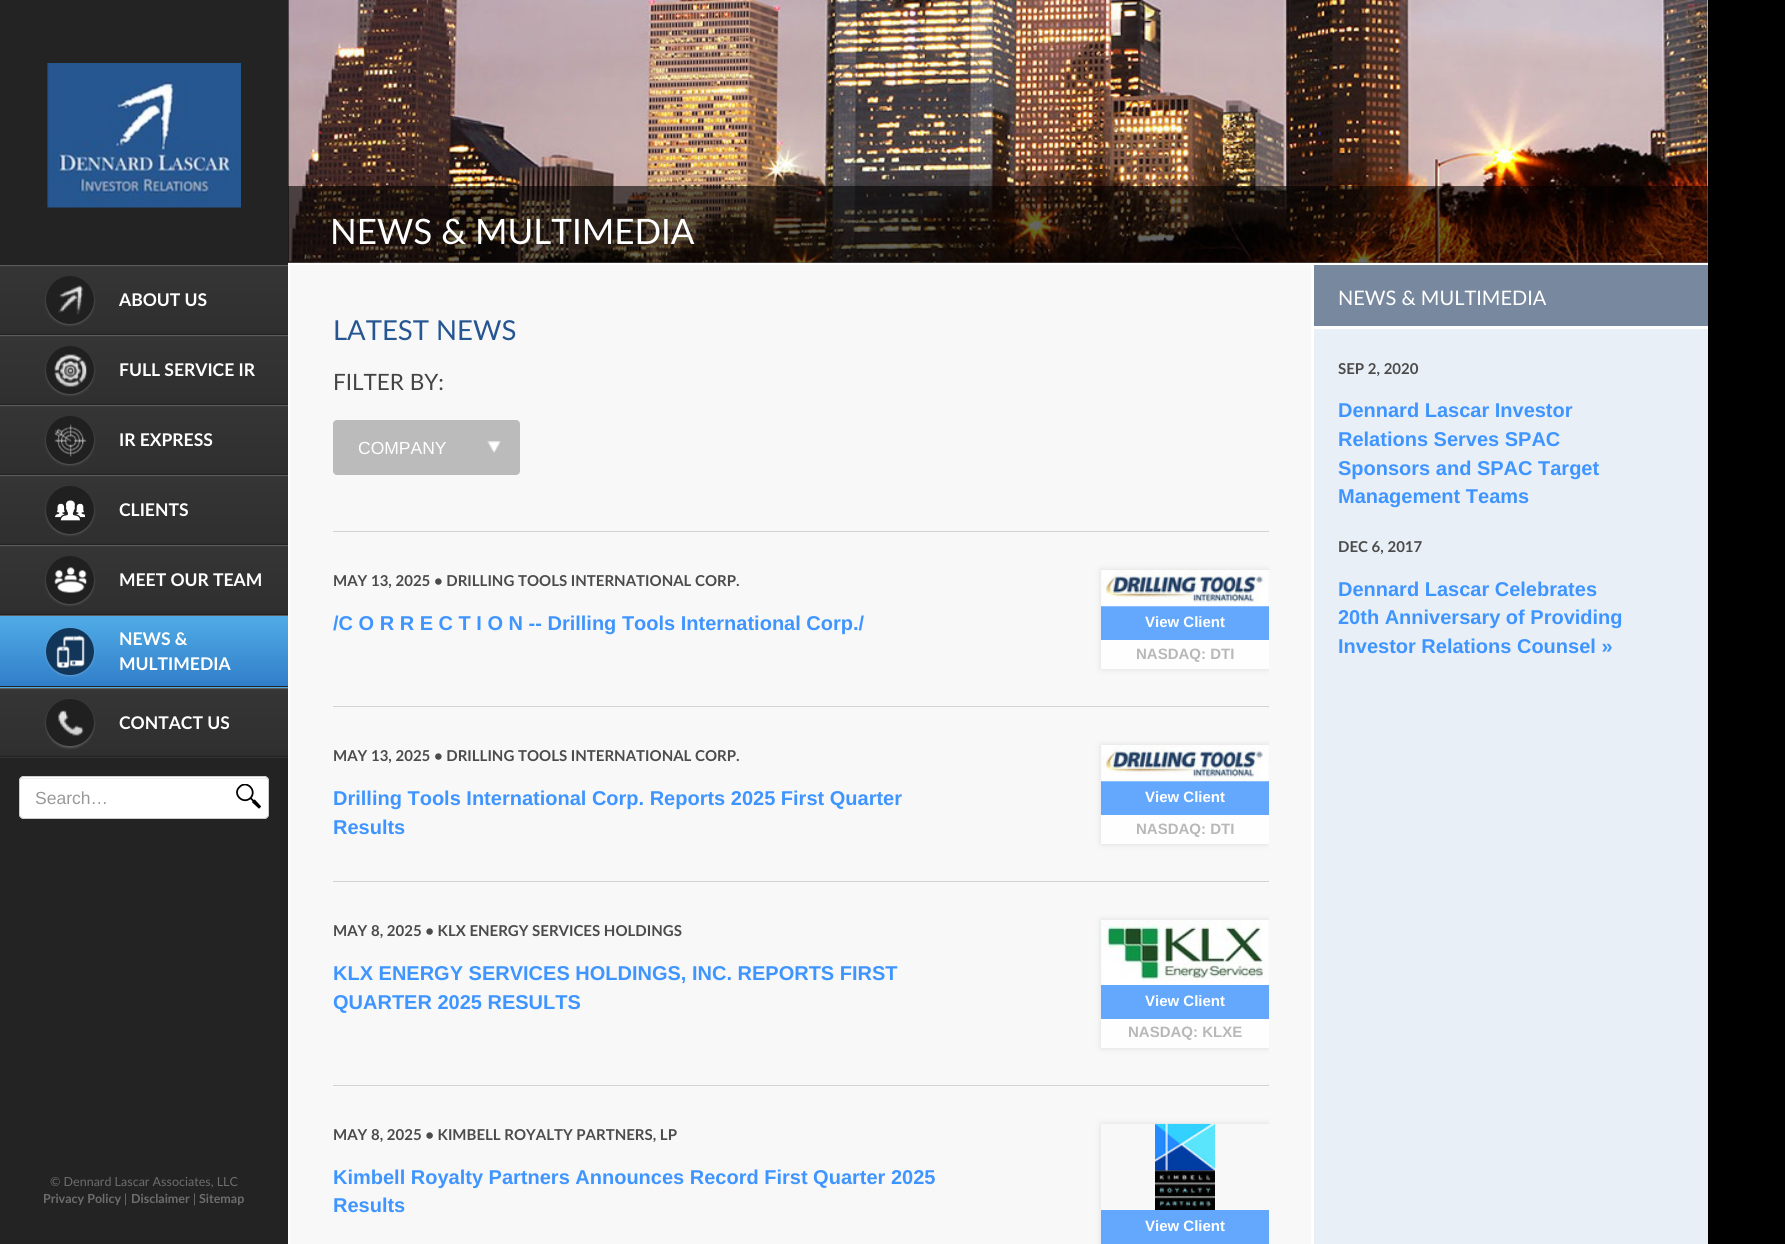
import math
import cairo


def use_color(cr, r, g, b):
  cr.set_source_rgb(r / 255, g / 255, b / 255)

def text(cr, x, y, s, family, size, color, bold=False, italic=False):
  cr.select_font_face(family, cairo.FONT_SLANT_ITALIC if italic else cairo.FONT_SLANT_NORMAL, cairo.FONT_WEIGHT_BOLD if bold else cairo.FONT_WEIGHT_NORMAL)
  cr.set_font_size(size)
  use_color(cr, *color)
  cr.move_to(x, y)
  cr.show_text(s)

def box(cr, x, y, w, h, *color):
  use_color(cr, *color)
  cr.rectangle(x, y, w, h)
  cr.fill()

def round_rect(cr, x, y, w, h, r):
  cr.new_sub_path()
  for i, (u, v) in enumerate([(x + w - r, y + h - r), (x + r, y + h - r), (x + r, y + r), (x + w - r, y + r)]):
    cr.arc(u, v, r, i * math.pi / 2, (i + 1) * math.pi / 2)
  cr.close_path()

def shadow(cr, x, y, w, h, r, blur, alpha):
  cr.push_group_with_content(cairo.CONTENT_ALPHA)
  cr.set_operator(cairo.OPERATOR_SOURCE)
  for i in range(15, -16, -2):
    e = blur * i / 6
    if min(w, h) + 2 * e > 0:
      cr.set_source_rgba(0, 0, 0, alpha * math.erfc((i - 1) / 8.5) / 2)
      round_rect(cr, x - e, y - e, w + 2 * e, h + 2 * e, max(0, min(r + e + blur * .6, min(w, h) / 2 + e)))
      cr.fill()
  cr.mask(cr.pop_group())

def picture(cr, path, x, y, w, h):
  cr.save()
  cr.set_source_surface(cairo.ImageSurface.create_from_png(path), x, y)
  cr.rectangle(x, y, w, h)
  cr.fill()
  cr.restore()

def draw(cr):
  use_color(cr, 0, 0, 0)
  cr.paint()
  box(cr, 288, 0, 1420, 1244, 255, 255, 255)
  box(cr, 0, 0, 288, 1244, 35, 35, 35)
  picture(cr, "img_01.png", 47, 63, 194, 145)
  gradient = cairo.LinearGradient(144, 266, 144, 334)
  gradient.add_color_stop_rgba(0, 0.275, 0.275, 0.275, 1)
  gradient.add_color_stop_rgba(0.01, 0.208, 0.208, 0.208, 1)
  gradient.add_color_stop_rgba(0.99, 0.184, 0.184, 0.184, 1)
  gradient.add_color_stop_rgba(1, 0.137, 0.137, 0.137, 1)
  cr.set_source(gradient)
  cr.rectangle(0, 266, 288, 68)
  cr.fill()
  box(cr, 0, 265, 288, 1, 92, 91, 91)
  use_color(cr, 255, 255, 255)
  shadow(cr, 46, 278, 48, 47, 23.5, 1, 0.2)
  use_color(cr, 32, 32, 32)
  cr.arc(70, 300, 24, 0, 2 * math.pi)
  cr.fill()
  picture(cr, "img_02.png", 58, 285, 26, 30)
  gradient = cairo.LinearGradient(144, 336, 144, 404)
  gradient.add_color_stop_rgba(0, 0.275, 0.275, 0.275, 1)
  gradient.add_color_stop_rgba(0.01, 0.208, 0.208, 0.208, 1)
  gradient.add_color_stop_rgba(0.99, 0.184, 0.184, 0.184, 1)
  gradient.add_color_stop_rgba(1, 0.137, 0.137, 0.137, 1)
  cr.set_source(gradient)
  cr.rectangle(0, 336, 288, 68)
  cr.fill()
  box(cr, 0, 335, 288, 1, 92, 91, 91)
  use_color(cr, 255, 255, 255)
  shadow(cr, 46, 348, 48, 47, 23.5, 1, 0.2)
  use_color(cr, 32, 32, 32)
  cr.arc(70, 370, 24, 0, 2 * math.pi)
  cr.fill()
  picture(cr, "img_03.png", 54, 354, 33, 33)
  gradient = cairo.LinearGradient(144, 406, 144, 474)
  gradient.add_color_stop_rgba(0, 0.275, 0.275, 0.275, 1)
  gradient.add_color_stop_rgba(0.01, 0.208, 0.208, 0.208, 1)
  gradient.add_color_stop_rgba(0.99, 0.184, 0.184, 0.184, 1)
  gradient.add_color_stop_rgba(1, 0.137, 0.137, 0.137, 1)
  cr.set_source(gradient)
  cr.rectangle(0, 406, 288, 68)
  cr.fill()
  box(cr, 0, 405, 288, 1, 92, 91, 91)
  use_color(cr, 255, 255, 255)
  shadow(cr, 46, 418, 48, 47, 23.5, 1, 0.2)
  use_color(cr, 32, 32, 32)
  cr.arc(70, 440, 24, 0, 2 * math.pi)
  cr.fill()
  picture(cr, "img_04.png", 54, 424, 33, 33)
  gradient = cairo.LinearGradient(144, 476, 144, 544)
  gradient.add_color_stop_rgba(0, 0.275, 0.275, 0.275, 1)
  gradient.add_color_stop_rgba(0.01, 0.208, 0.208, 0.208, 1)
  gradient.add_color_stop_rgba(0.99, 0.184, 0.184, 0.184, 1)
  gradient.add_color_stop_rgba(1, 0.137, 0.137, 0.137, 1)
  cr.set_source(gradient)
  cr.rectangle(0, 476, 288, 68)
  cr.fill()
  box(cr, 0, 475, 288, 1, 92, 91, 91)
  use_color(cr, 255, 255, 255)
  shadow(cr, 46, 488, 48, 47, 23.5, 1, 0.2)
  use_color(cr, 32, 32, 32)
  cr.arc(70, 510, 24, 0, 2 * math.pi)
  cr.fill()
  picture(cr, "img_05.png", 55, 500, 30, 21)
  gradient = cairo.LinearGradient(144, 546, 144, 614)
  gradient.add_color_stop_rgba(0, 0.275, 0.275, 0.275, 1)
  gradient.add_color_stop_rgba(0.01, 0.208, 0.208, 0.208, 1)
  gradient.add_color_stop_rgba(0.99, 0.184, 0.184, 0.184, 1)
  gradient.add_color_stop_rgba(1, 0.137, 0.137, 0.137, 1)
  cr.set_source(gradient)
  cr.rectangle(0, 546, 288, 68)
  cr.fill()
  box(cr, 0, 545, 288, 1, 92, 91, 91)
  use_color(cr, 255, 255, 255)
  shadow(cr, 46, 558, 48, 47, 23.5, 1, 0.2)
  use_color(cr, 32, 32, 32)
  cr.arc(70, 580, 24, 0, 2 * math.pi)
  cr.fill()
  picture(cr, "img_06.png", 54, 567, 33, 26)
  gradient = cairo.LinearGradient(144, 616, 144, 686)
  gradient.add_color_stop_rgba(0, 0.314, 0.675, 0.902, 1)
  gradient.add_color_stop_rgba(1, 0.192, 0.494, 0.788, 1)
  cr.set_source(gradient)
  cr.rectangle(0, 616, 288, 70)
  cr.fill()
  gradient = cairo.LinearGradient(144, 686, 144, 756)
  gradient.add_color_stop_rgba(0, 0.314, 0.675, 0.902, 1)
  gradient.add_color_stop_rgba(1, 0.192, 0.494, 0.788, 1)
  cr.set_source(gradient)
  cr.rectangle(0, 687, 288, 1)
  cr.fill()
  box(cr, 0, 615, 288, 1, 92, 91, 91)
  use_color(cr, 255, 255, 255)
  shadow(cr, 46, 629, 48, 47, 23.5, 1, 0.2)
  use_color(cr, 17, 54, 89)
  round_rect(cr, 46, 628, 48, 47, 23.5)
  cr.fill()
  picture(cr, "img_07.png", 56, 635, 29, 33)
  gradient = cairo.LinearGradient(144, 689, 144, 756)
  gradient.add_color_stop_rgba(0, 0.275, 0.275, 0.275, 1)
  gradient.add_color_stop_rgba(0.01, 0.208, 0.208, 0.208, 1)
  gradient.add_color_stop_rgba(0.99, 0.184, 0.184, 0.184, 1)
  gradient.add_color_stop_rgba(1, 0.137, 0.137, 0.137, 1)
  cr.set_source(gradient)
  cr.rectangle(0, 689, 288, 67)
  cr.fill()
  gradient = cairo.LinearGradient(144, 756, 144, 824)
  gradient.add_color_stop_rgba(0, 0.275, 0.275, 0.275, 1)
  gradient.add_color_stop_rgba(0.01, 0.208, 0.208, 0.208, 1)
  gradient.add_color_stop_rgba(0.99, 0.184, 0.184, 0.184, 1)
  gradient.add_color_stop_rgba(1, 0.137, 0.137, 0.137, 1)
  cr.set_source(gradient)
  cr.rectangle(0, 757, 288, 1)
  cr.fill()
  box(cr, 0, 688, 288, 1, 92, 91, 91)
  use_color(cr, 255, 255, 255)
  shadow(cr, 46, 700, 48, 48, 24, 1, 0.2)
  use_color(cr, 32, 32, 32)
  round_rect(cr, 46, 699, 48, 47, 23.5)
  cr.fill()
  picture(cr, "img_08.png", 58, 710, 26, 26)
  use_color(cr, 255, 255, 255)
  round_rect(cr, 19, 776, 250, 43, 5)
  cr.fill()
  use_color(cr, 236, 236, 236)
  cr.new_path()
  cr.move_to(24, 779)
  cr.line_to(264, 779)
  cr.curve_to(266, 779, 268, 780, 268, 782)
  cr.curve_to(268, 780, 266, 778, 264, 778)
  cr.line_to(24, 778)
  cr.curve_to(22, 778, 20, 780, 20, 782)
  cr.curve_to(20, 780, 22, 779, 24, 779)
  cr.close_path()
  cr.fill()
  round_rect(cr, 19.5, 776.5, 249, 42, 4.5)
  use_color(cr, 204, 204, 204)
  cr.set_line_width(1)
  cr.stroke()
  cr.save()
  cr.rectangle(236, 784, 25, 25)
  cr.clip()
  cr.new_path()
  cr.move_to(250.5, 798)
  cr.curve_to(257.5, 790.5, 246.5, 779.5, 239.5, 787)
  cr.curve_to(232, 794, 243, 805, 250.5, 798)
  cr.line_to(259, 806.5)
  cr.move_to(254.5, 800.5)
  cr.line_to(260, 806.5)
  cr.line_to(259, 807.5)
  cr.line_to(253, 802)
  use_color(cr, 0, 0, 0)
  cr.set_line_width(1.8)
  cr.set_line_cap(cairo.LINE_CAP_ROUND)
  cr.stroke()
  cr.restore()
  picture(cr, "img_09.png", 288, 0, 1420, 263)
  cr.set_source_rgba(0, 0, 0, 0.6)
  cr.rectangle(288, 186, 1420, 77)
  cr.fill()
  box(cr, 290, 265, 1021, 979, 248, 248, 248)
  use_color(cr, 187, 187, 187)
  round_rect(cr, 333, 420, 187, 55, 4)
  cr.fill()
  picture(cr, "img_10.png", 487, 441, 14, 12)
  box(cr, 333, 531, 936, 1, 211, 211, 211)
  cr.save()
  cr.rectangle(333, 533, 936, 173)
  cr.clip()
  cr.set_fill_rule(cairo.FILL_RULE_EVEN_ODD)
  cr.new_path()
  cr.move_to(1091, 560)
  cr.line_to(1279, 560)
  cr.line_to(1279, 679)
  cr.line_to(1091, 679)
  cr.close_path()
  cr.move_to(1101, 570)
  cr.line_to(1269, 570)
  cr.line_to(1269, 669)
  cr.line_to(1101, 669)
  cr.close_path()
  cr.clip()
  use_color(cr, 221, 221, 221)
  shadow(cr, 1101, 570, 168, 99, 0, 3, 1)
  cr.restore()
  box(cr, 1101, 606, 168, 34, 99, 168, 252)
  picture(cr, "img_11.png", 1101, 570, 168, 37)
  cr.set_source_rgba(1, 1, 1, 0.9)
  cr.rectangle(1101, 640, 168, 29)
  cr.fill()
  box(cr, 333, 706, 936, 1, 211, 211, 211)
  cr.save()
  cr.rectangle(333, 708, 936, 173)
  cr.clip()
  cr.set_fill_rule(cairo.FILL_RULE_EVEN_ODD)
  cr.new_path()
  cr.move_to(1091, 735)
  cr.line_to(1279, 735)
  cr.line_to(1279, 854)
  cr.line_to(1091, 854)
  cr.close_path()
  cr.move_to(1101, 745)
  cr.line_to(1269, 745)
  cr.line_to(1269, 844)
  cr.line_to(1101, 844)
  cr.close_path()
  cr.clip()
  use_color(cr, 221, 221, 221)
  shadow(cr, 1101, 745, 168, 99, 0, 3, 1)
  cr.restore()
  box(cr, 1101, 781, 168, 34, 99, 168, 252)
  picture(cr, "img_12.png", 1101, 745, 168, 37)
  cr.set_source_rgba(1, 1, 1, 0.9)
  cr.rectangle(1101, 815, 168, 29)
  cr.fill()
  box(cr, 333, 881, 936, 1, 211, 211, 211)
  cr.save()
  cr.rectangle(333, 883, 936, 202)
  cr.clip()
  cr.set_fill_rule(cairo.FILL_RULE_EVEN_ODD)
  cr.new_path()
  cr.move_to(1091, 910)
  cr.line_to(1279, 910)
  cr.line_to(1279, 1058)
  cr.line_to(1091, 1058)
  cr.close_path()
  cr.move_to(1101, 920)
  cr.line_to(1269, 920)
  cr.line_to(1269, 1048)
  cr.line_to(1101, 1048)
  cr.close_path()
  cr.clip()
  use_color(cr, 221, 221, 221)
  shadow(cr, 1101, 920, 168, 128, 0, 3, 1)
  cr.restore()
  picture(cr, "img_13.png", 1101, 920, 168, 65)
  box(cr, 1101, 985, 168, 34, 99, 168, 252)
  cr.set_source_rgba(1, 1, 1, 0.9)
  cr.rectangle(1101, 1019, 168, 29)
  cr.fill()
  box(cr, 333, 1085, 936, 1, 211, 211, 211)
  cr.save()
  cr.rectangle(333, 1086, 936, 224)
  cr.clip()
  cr.set_fill_rule(cairo.FILL_RULE_EVEN_ODD)
  cr.new_path()
  cr.move_to(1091, 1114)
  cr.line_to(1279, 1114)
  cr.line_to(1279, 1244)
  cr.line_to(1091, 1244)
  cr.close_path()
  cr.move_to(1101, 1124)
  cr.line_to(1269, 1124)
  cr.line_to(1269, 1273)
  cr.line_to(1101, 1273)
  cr.close_path()
  cr.clip()
  use_color(cr, 221, 221, 221)
  shadow(cr, 1101, 1124, 168, 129, 0, 3, 1)
  cr.restore()
  picture(cr, "img_14.png", 1155, 1123, 60, 87)
  box(cr, 1101, 1210, 168, 34, 99, 168, 252)
  box(cr, 1314, 329, 394, 915, 232, 239, 247)
  box(cr, 1314, 265, 394, 61, 120, 137, 159)
  text(cr, 119, 306, "ABOUT US", "Lato", 17.5, (255, 255, 255), bold=True)
  text(cr, 119, 376, "FULL SERVICE IR", "Lato", 17.5, (255, 255, 255), bold=True)
  text(cr, 119, 446, "IR EXPRESS", "Lato", 17.5, (255, 255, 255), bold=True)
  text(cr, 119, 516, "CLIENTS", "Lato", 17.5, (255, 255, 255), bold=True)
  text(cr, 119, 586, "MEET OUR TEAM", "Lato", 17.5, (255, 255, 255), bold=True)
  text(cr, 119, 645, "NEWS &", "Lato", 17.5, (255, 255, 255), bold=True)
  text(cr, 119, 670, "MULTIMEDIA", "Lato", 17.5, (255, 255, 255), bold=True)
  text(cr, 119, 729, "CONTACT US", "Lato", 17.5, (255, 255, 255), bold=True)
  text(cr, 35, 804, "Search…", "Liberation Sans", 17.5, (153, 153, 153))
  text(cr, 50, 1186, "© Dennard Lascar Associates, LLC", "Lato", 12.5, (109, 109, 109))
  text(cr, 43, 1203, "Privacy Policy", "Lato", 12.5, (109, 109, 109), bold=True)
  text(cr, 124, 1203, "|", "Lato", 12.5, (109, 109, 109))
  text(cr, 131, 1203, "Disclaimer", "Lato", 12.5, (109, 109, 109), bold=True)
  text(cr, 193, 1203, "|", "Lato", 12.5, (109, 109, 109))
  text(cr, 199, 1203, "Sitemap", "Lato", 12.5, (109, 109, 109), bold=True)
  text(cr, 330, 244, "NEWS & MULTIMEDIA", "Lato", 35, (255, 255, 255))
  text(cr, 333, 340, "LATEST NEWS", "Lato", 27.5, (38, 86, 145))
  text(cr, 333, 390, "FILTER BY:", "Lato", 22.5, (68, 68, 68))
  text(cr, 358, 454, "COMPANY", "Liberation Sans", 17.5, (255, 255, 255))
  text(cr, 333, 586, "MAY 13, 2025 • DRILLING TOOLS INTERNATIONAL CORP.", "Lato", 15, (75, 75, 75), bold=True)
  text(cr, 333, 630, "/C O R R E C T I O N -- Drilling Tools International Corp./", "Liberation Sans", 20, (63, 149, 255), bold=True)
  text(cr, 1145, 627, "View Client", "Liberation Sans", 15, (255, 255, 255), bold=True)
  text(cr, 1136, 659, "NASDAQ: DTI", "Liberation Sans", 15, (184, 184, 184), bold=True)
  text(cr, 333, 761, "MAY 13, 2025 • DRILLING TOOLS INTERNATIONAL CORP.", "Lato", 15, (75, 75, 75), bold=True)
  text(cr, 333, 805, "Drilling Tools International Corp. Reports 2025 First Quarter", "Liberation Sans", 20, (63, 149, 255), bold=True)
  text(cr, 333, 834, "Results", "Liberation Sans", 20, (63, 149, 255), bold=True)
  text(cr, 1145, 802, "View Client", "Liberation Sans", 15, (255, 255, 255), bold=True)
  text(cr, 1136, 834, "NASDAQ: DTI", "Liberation Sans", 15, (184, 184, 184), bold=True)
  text(cr, 333, 936, "MAY 8, 2025 • KLX ENERGY SERVICES HOLDINGS", "Lato", 15, (75, 75, 75), bold=True)
  text(cr, 333, 980, "KLX ENERGY SERVICES HOLDINGS, INC. REPORTS FIRST", "Liberation Sans", 20, (63, 149, 255), bold=True)
  text(cr, 333, 1009, "QUARTER 2025 RESULTS", "Liberation Sans", 20, (63, 149, 255), bold=True)
  text(cr, 1145, 1006, "View Client", "Liberation Sans", 15, (255, 255, 255), bold=True)
  text(cr, 1128, 1037, "NASDAQ: KLXE", "Liberation Sans", 15, (184, 184, 184), bold=True)
  text(cr, 333, 1140, "MAY 8, 2025 • KIMBELL ROYALTY PARTNERS, LP", "Lato", 15, (75, 75, 75), bold=True)
  text(cr, 333, 1184, "Kimbell Royalty Partners Announces Record First Quarter 2025", "Liberation Sans", 20, (63, 149, 255), bold=True)
  text(cr, 333, 1212, "Results", "Liberation Sans", 20, (63, 149, 255), bold=True)
  text(cr, 1145, 1231, "View Client", "Liberation Sans", 15, (255, 255, 255), bold=True)
  text(cr, 1338, 305, "NEWS & MULTIMEDIA", "Lato", 20, (255, 255, 255))
  text(cr, 1338, 374, "SEP 2, 2020", "Lato", 15, (75, 75, 75), bold=True)
  text(cr, 1338, 417, "Dennard Lascar Investor", "Liberation Sans", 20, (63, 149, 255), bold=True)
  text(cr, 1338, 446, "Relations Serves SPAC", "Liberation Sans", 20, (63, 149, 255), bold=True)
  text(cr, 1338, 475, "Sponsors and SPAC Target", "Liberation Sans", 20, (63, 149, 255), bold=True)
  text(cr, 1338, 503, "Management Teams", "Liberation Sans", 20, (63, 149, 255), bold=True)
  text(cr, 1338, 552, "DEC 6, 2017", "Lato", 15, (75, 75, 75), bold=True)
  text(cr, 1338, 596, "Dennard Lascar Celebrates", "Liberation Sans", 20, (63, 149, 255), bold=True)
  text(cr, 1338, 624, "20th Anniversary of Providing", "Liberation Sans", 20, (63, 149, 255), bold=True)
  text(cr, 1338, 653, "Investor Relations Counsel »", "Liberation Sans", 20, (63, 149, 255), bold=True)


surface = cairo.ImageSurface(cairo.FORMAT_RGB24, 1785, 1244)
cr = cairo.Context(surface)
options = cairo.FontOptions()
options.set_hint_metrics(cairo.HINT_METRICS_OFF)
options.set_hint_style(cairo.HINT_STYLE_NONE)
cr.set_font_options(options)
cr.set_miter_limit(4)
draw(cr)
surface.write_to_png("out.png")
